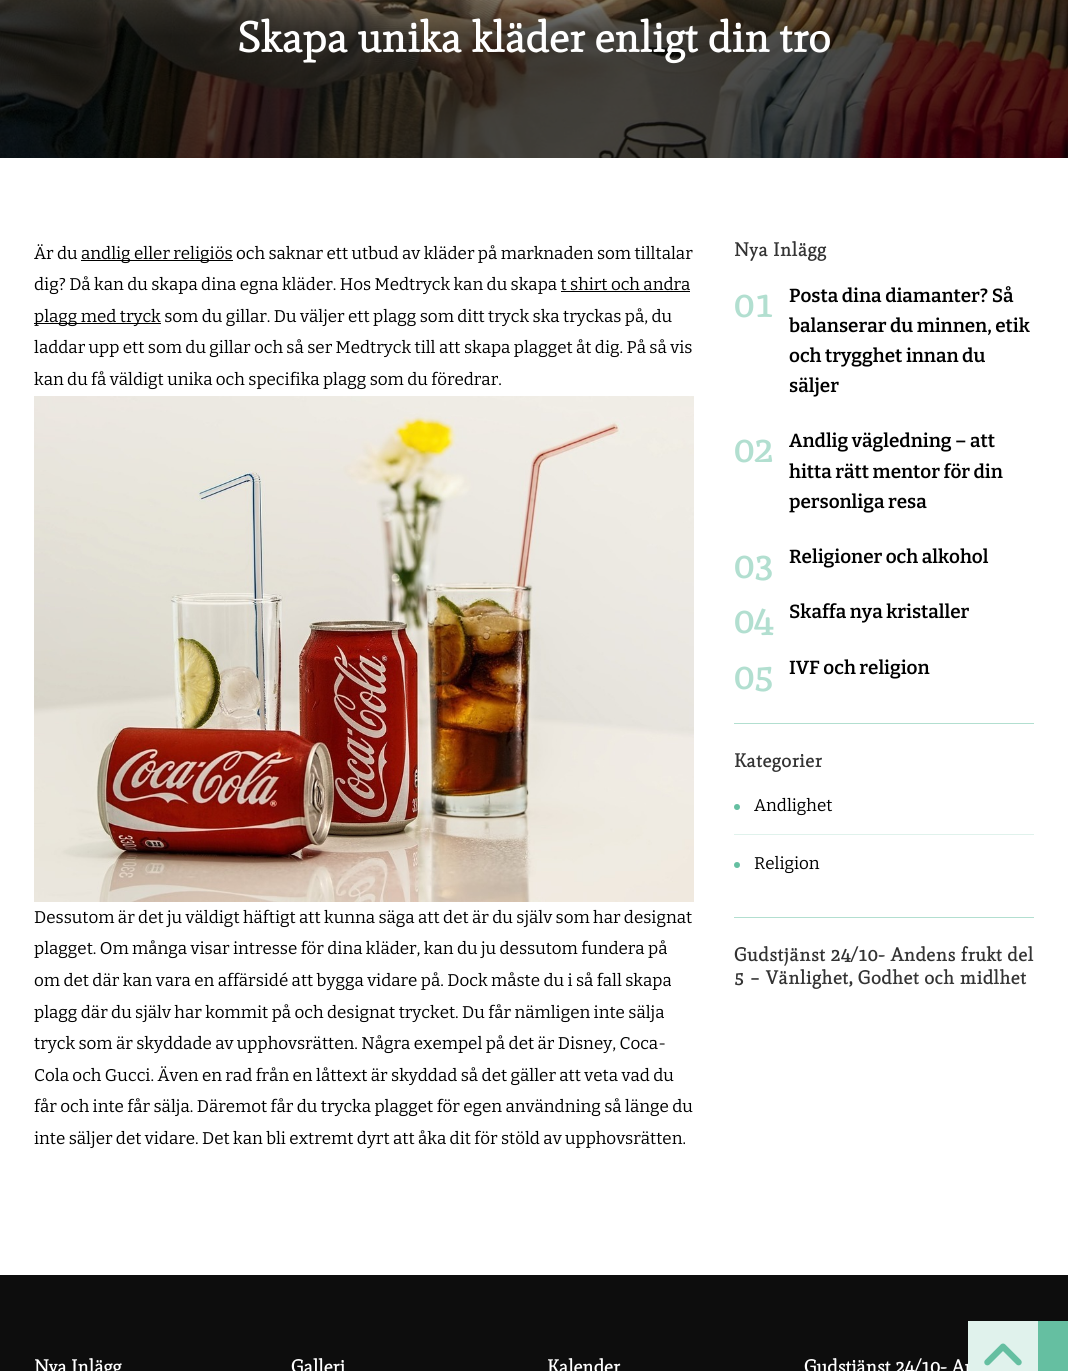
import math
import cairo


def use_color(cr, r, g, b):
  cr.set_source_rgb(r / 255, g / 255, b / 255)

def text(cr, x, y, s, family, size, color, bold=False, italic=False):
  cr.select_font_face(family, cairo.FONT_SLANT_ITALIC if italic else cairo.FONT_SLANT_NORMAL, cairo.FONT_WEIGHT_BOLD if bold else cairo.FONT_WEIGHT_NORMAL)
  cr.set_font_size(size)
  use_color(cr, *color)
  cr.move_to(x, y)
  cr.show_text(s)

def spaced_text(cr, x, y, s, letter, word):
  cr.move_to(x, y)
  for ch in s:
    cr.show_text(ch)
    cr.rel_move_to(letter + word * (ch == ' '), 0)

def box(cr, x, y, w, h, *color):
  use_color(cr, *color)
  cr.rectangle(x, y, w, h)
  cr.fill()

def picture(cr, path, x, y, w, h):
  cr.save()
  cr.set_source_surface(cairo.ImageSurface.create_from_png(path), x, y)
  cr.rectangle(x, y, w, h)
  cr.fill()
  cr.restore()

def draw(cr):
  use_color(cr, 255, 255, 255)
  cr.paint()
  picture(cr, "img_01.png", 0, 0, 1068, 158)
  box(cr, 81, 260, 152, 1, 0, 0, 0)
  box(cr, 561, 291, 129, 1, 0, 0, 0)
  box(cr, 34, 323, 127, 1, 0, 0, 0)
  picture(cr, "img_02.png", 34, 396, 660, 506)
  box(cr, 734, 723, 300, 1, 178, 223, 208)
  box(cr, 734, 917, 300, 1, 178, 223, 208)
  box(cr, 734, 834, 300, 1, 224, 242, 236)
  use_color(cr, 101, 191, 161)
  cr.arc(737, 807, 3, 0, 2 * math.pi)
  cr.fill()
  cr.arc(737, 865, 3, 0, 2 * math.pi)
  cr.fill()
  box(cr, 0, 1275, 1068, 96, 13, 13, 13)
  box(cr, 1038, 1321, 30, 50, 101, 191, 161)
  text(cr, 237, 52, "Skapa unika kläder enligt din tro", "Mate", 42.5, (255, 255, 255), bold=True)
  text(cr, 34, 259, "Är du", "Bitter", 17, (0, 0, 0))
  text(cr, 81, 259, "andlig eller religiös och saknar ett utbud av kläder på marknaden som tilltalar", "Bitter", 17, (0, 0, 0))
  text(cr, 34, 290, "dig? Då kan du skapa dina egna kläder. Hos Medtryck kan du skapa t shirt och andra", "Bitter", 17, (0, 0, 0))
  text(cr, 34, 322, "plagg med tryck som du gillar. Du väljer ett plagg som ditt tryck ska tryckas på, du", "Bitter", 17, (0, 0, 0))
  text(cr, 34, 353, "laddar upp ett som du gillar och så ser Medtryck till att skapa plagget åt dig. På så vis", "Bitter", 17, (0, 0, 0))
  text(cr, 34, 385, "kan du få väldigt unika och specifika plagg som du föredrar.", "Bitter", 17, (0, 0, 0))
  text(cr, 34, 923, "Dessutom är det ju väldigt häftigt att kunna säga att det är du själv som har designat", "Bitter", 17, (0, 0, 0))
  text(cr, 34, 954, "plagget. Om många visar intresse för dina kläder, kan du ju dessutom fundera på", "Bitter", 17, (0, 0, 0))
  text(cr, 34, 986, "om det där kan vara en affärsidé att bygga vidare på. Dock måste du i så fall skapa", "Bitter", 17, (0, 0, 0))
  text(cr, 34, 1018, "plagg där du själv har kommit på och designat trycket. Du får nämligen inte sälja", "Bitter", 17, (0, 0, 0))
  text(cr, 34, 1049, "tryck som är skyddade av upphovsrätten. Några exempel på det är Disney, Coca-", "Bitter", 17, (0, 0, 0))
  text(cr, 34, 1081, "Cola och Gucci. Även en rad från en låttext är skyddad så det gäller att veta vad du", "Bitter", 17, (0, 0, 0))
  text(cr, 34, 1112, "får och inte får sälja. Däremot får du trycka plagget för egen användning så länge du", "Bitter", 17, (0, 0, 0))
  text(cr, 34, 1144, "inte säljer det vidare. Det kan bli extremt dyrt att åka dit för stöld av upphovsrätten.", "Bitter", 17, (0, 0, 0))
  cr.select_font_face("Mate", cairo.FONT_SLANT_NORMAL, cairo.FONT_WEIGHT_BOLD)
  cr.set_font_size(18.9)
  use_color(cr, 51, 51, 51)
  spaced_text(cr, 734, 256, "Nya Inlägg", 0.5, 0)
  text(cr, 734, 317, "01", "Mate", 38, (178, 223, 208), bold=True)
  text(cr, 789, 302, "Posta dina diamanter? Så", "Bitter SemiBold", 18.9, (0, 0, 0))
  text(cr, 789, 332, "balanserar du minnen, etik", "Bitter SemiBold", 18.9, (0, 0, 0))
  text(cr, 789, 362, "och trygghet innan du", "Bitter SemiBold", 18.9, (0, 0, 0))
  text(cr, 789, 392, "säljer", "Bitter SemiBold", 18.9, (0, 0, 0))
  text(cr, 734, 462, "02", "Mate", 38, (178, 223, 208), bold=True)
  text(cr, 789, 447, "Andlig vägledning – att", "Bitter SemiBold", 18.9, (0, 0, 0))
  text(cr, 789, 478, "hitta rätt mentor för din", "Bitter SemiBold", 18.9, (0, 0, 0))
  text(cr, 789, 508, "personliga resa", "Bitter SemiBold", 18.9, (0, 0, 0))
  text(cr, 734, 578, "03", "Mate", 38, (178, 223, 208), bold=True)
  text(cr, 789, 563, "Religioner och alkohol", "Bitter SemiBold", 18.9, (0, 0, 0))
  text(cr, 734, 633, "04", "Mate", 38, (178, 223, 208), bold=True)
  text(cr, 789, 618, "Skaffa nya kristaller", "Bitter SemiBold", 18.9, (0, 0, 0))
  text(cr, 734, 689, "05", "Mate", 38, (178, 223, 208), bold=True)
  text(cr, 789, 674, "IVF och religion", "Bitter SemiBold", 18.9, (0, 0, 0))
  cr.select_font_face("Mate", cairo.FONT_SLANT_NORMAL, cairo.FONT_WEIGHT_BOLD)
  use_color(cr, 51, 51, 51)
  spaced_text(cr, 734, 767, "Kategorier", 0.5, 0)
  text(cr, 754, 811, "Andlighet", "Bitter", 17, (0, 0, 0))
  text(cr, 754, 869, "Religion", "Bitter", 17, (0, 0, 0))
  cr.select_font_face("Mate", cairo.FONT_SLANT_NORMAL, cairo.FONT_WEIGHT_BOLD)
  cr.set_font_size(18.9)
  use_color(cr, 51, 51, 51)
  spaced_text(cr, 734, 961, "Gudstjänst 24/10- Andens frukt del", 0.5, 0)
  spaced_text(cr, 734, 984, "5 – Vänlighet, Godhet och midlhet", 0.5, 0)
  text(cr, 34, 1373, "Nya Inlägg", "Mate", 18.9, (255, 255, 255), bold=True)
  text(cr, 291, 1373, "Galleri", "Mate", 18.9, (255, 255, 255), bold=True)
  text(cr, 547, 1373, "Kalender", "Mate", 18.9, (255, 255, 255), bold=True)
  text(cr, 804, 1373, "Gudstjänst 24/10- An", "Mate", 18.9, (255, 255, 255), bold=True)
  box(cr, 968, 1321, 70, 50, 224, 242, 236)
  picture(cr, "img_03.png", 984, 1343, 38, 23)


surface = cairo.ImageSurface(cairo.FORMAT_RGB24, 1068, 1371)
cr = cairo.Context(surface)
options = cairo.FontOptions()
options.set_hint_metrics(cairo.HINT_METRICS_OFF)
options.set_hint_style(cairo.HINT_STYLE_NONE)
cr.set_font_options(options)
cr.set_miter_limit(4)
draw(cr)
surface.write_to_png("out.png")
